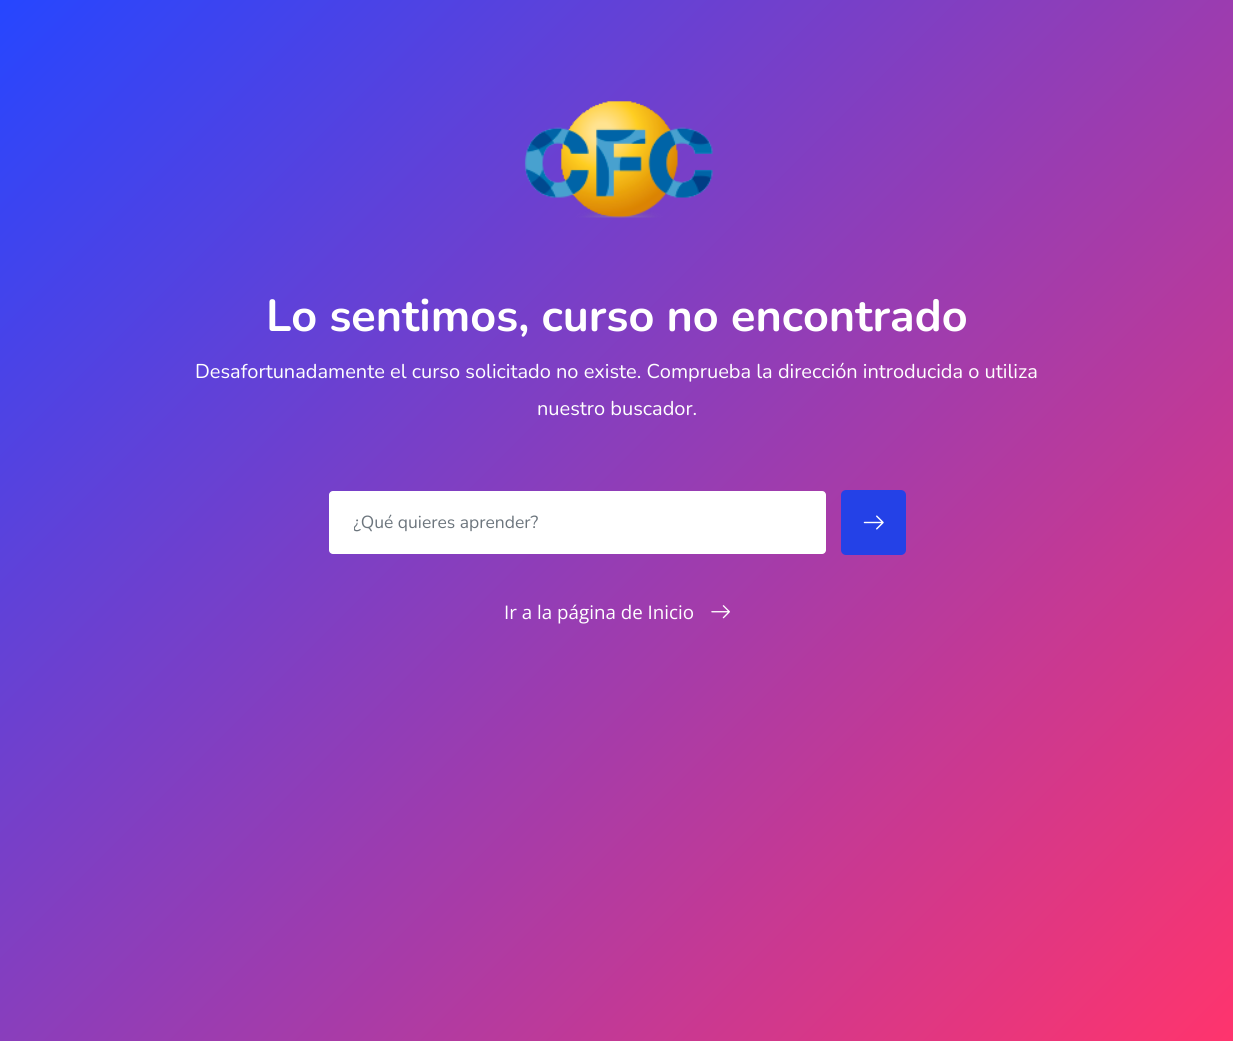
import math
import cairo


def use_color(cr, r, g, b):
  cr.set_source_rgb(r / 255, g / 255, b / 255)

def text(cr, x, y, s, family, size, color, bold=False, italic=False):
  cr.select_font_face(family, cairo.FONT_SLANT_ITALIC if italic else cairo.FONT_SLANT_NORMAL, cairo.FONT_WEIGHT_BOLD if bold else cairo.FONT_WEIGHT_NORMAL)
  cr.set_font_size(size)
  use_color(cr, *color)
  cr.move_to(x, y)
  cr.show_text(s)

def round_rect(cr, x, y, w, h, r):
  cr.new_sub_path()
  for i, (u, v) in enumerate([(x + w - r, y + h - r), (x + r, y + h - r), (x + r, y + r), (x + w - r, y + r)]):
    cr.arc(u, v, r, i * math.pi / 2, (i + 1) * math.pi / 2)
  cr.close_path()

def picture(cr, path, x, y, w, h):
  cr.save()
  cr.set_source_surface(cairo.ImageSurface.create_from_png(path), x, y)
  cr.rectangle(x, y, w, h)
  cr.fill()
  cr.restore()

def draw(cr):
  use_color(cr, 255, 255, 255)
  cr.paint()
  gradient = cairo.LinearGradient(1186, 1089, 48, -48)
  gradient.add_color_stop_rgba(0, 1, 0.204, 0.427, 1)
  gradient.add_color_stop_rgba(1, 0.149, 0.275, 1, 1)
  cr.set_source(gradient)
  cr.rectangle(0, 0, 1233, 1041)
  cr.fill()
  picture(cr, "img_01.png", 524, 101, 189, 117)
  use_color(cr, 255, 255, 255)
  round_rect(cr, 329, 491, 497, 63, 4)
  cr.fill()
  use_color(cr, 36, 65, 231)
  round_rect(cr, 841, 490, 65, 65, 5)
  cr.fill()
  picture(cr, "img_02.png", 863, 515, 21, 15)
  picture(cr, "img_03.png", 711, 605, 19, 14)
  text(cr, 266, 331, "Lo sentimos, curso no encontrado", "Nunito", 45, (255, 255, 255), bold=True)
  text(cr, 195, 378, "Desafortunadamente el curso solicitado no existe. Comprueba la dirección introducida o utiliza", "Nunito", 20, (255, 255, 255))
  text(cr, 537, 415, "nuestro buscador.", "Nunito", 20, (255, 255, 255))
  cr.save()
  cr.rectangle(354, 511, 447, 24)
  cr.clip()
  text(cr, 353, 528, "¿Qué quieres aprender?", "Nunito", 17.5, (108, 117, 125))
  cr.restore()
  text(cr, 504, 619, "Ir a la página de Inicio", "Open Sans", 18.75, (255, 255, 255))


surface = cairo.ImageSurface(cairo.FORMAT_RGB24, 1233, 1041)
cr = cairo.Context(surface)
options = cairo.FontOptions()
options.set_hint_metrics(cairo.HINT_METRICS_OFF)
options.set_hint_style(cairo.HINT_STYLE_NONE)
cr.set_font_options(options)
cr.set_miter_limit(4)
draw(cr)
surface.write_to_png("out.png")
